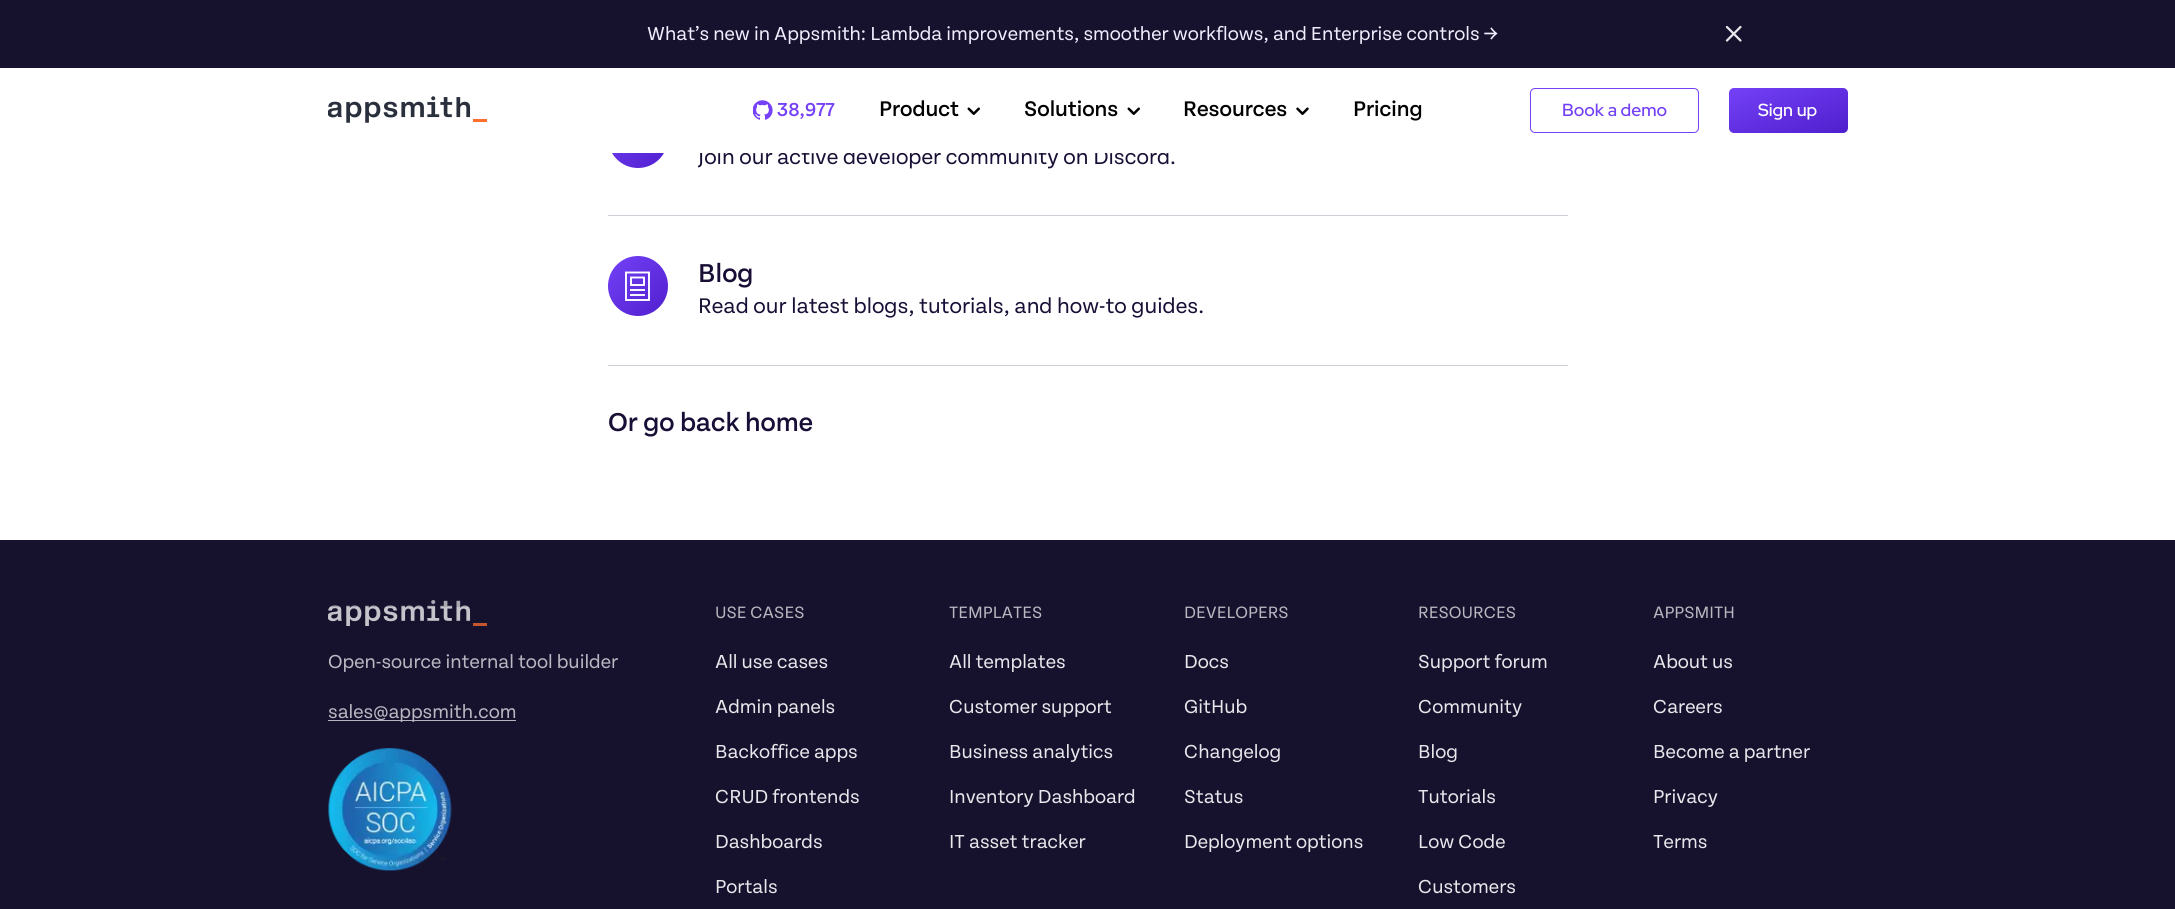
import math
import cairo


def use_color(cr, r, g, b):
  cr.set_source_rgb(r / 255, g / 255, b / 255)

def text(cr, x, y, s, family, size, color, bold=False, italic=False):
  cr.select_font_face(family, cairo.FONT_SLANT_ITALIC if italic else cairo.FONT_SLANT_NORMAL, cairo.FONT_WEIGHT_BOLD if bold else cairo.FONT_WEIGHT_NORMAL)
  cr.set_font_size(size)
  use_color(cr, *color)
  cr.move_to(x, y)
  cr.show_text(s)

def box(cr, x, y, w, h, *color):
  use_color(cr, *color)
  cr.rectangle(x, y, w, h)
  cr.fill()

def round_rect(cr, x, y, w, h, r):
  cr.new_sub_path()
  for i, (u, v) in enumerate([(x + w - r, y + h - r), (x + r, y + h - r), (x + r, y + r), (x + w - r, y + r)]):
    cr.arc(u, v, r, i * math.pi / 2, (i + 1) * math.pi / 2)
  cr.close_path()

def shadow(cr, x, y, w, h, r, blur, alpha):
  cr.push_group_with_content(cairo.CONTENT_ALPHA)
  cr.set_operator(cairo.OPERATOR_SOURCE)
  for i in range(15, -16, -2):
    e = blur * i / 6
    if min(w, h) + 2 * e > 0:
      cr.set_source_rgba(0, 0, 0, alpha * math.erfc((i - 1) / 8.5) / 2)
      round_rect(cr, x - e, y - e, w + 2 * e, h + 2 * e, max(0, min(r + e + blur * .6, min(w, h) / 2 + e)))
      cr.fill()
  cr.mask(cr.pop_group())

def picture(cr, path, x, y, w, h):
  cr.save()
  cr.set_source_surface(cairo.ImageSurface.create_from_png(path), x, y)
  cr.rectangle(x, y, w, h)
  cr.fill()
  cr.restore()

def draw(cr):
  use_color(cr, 22, 18, 46)
  cr.paint()
  picture(cr, "img_06.png", 328, 600, 159, 26)
  box(cr, 328, 720, 188, 1, 185, 184, 193)
  picture(cr, "img_07.png", 328, 747, 124, 124)
  use_color(cr, 22, 18, 46)
  shadow(cr, 3, -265, 2170, 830, 13, 84, 1)
  picture(cr, "img_01.png", 1725, 25, 17, 17)
  box(cr, 0, 153, 2175, 387, 255, 255, 255)
  gradient = cairo.LinearGradient(608, 108, 668, 168)
  gradient.add_color_stop_rgba(0, 0.455, 0.255, 0.969, 1)
  gradient.add_color_stop_rgba(1, 0.314, 0.122, 0.804, 1)
  cr.set_source(gradient)
  cr.arc(638, 138, 30, 0, 2 * math.pi)
  cr.fill()
  box(cr, 608, 215, 960, 1, 209, 207, 215)
  gradient = cairo.LinearGradient(608, 256, 668, 316)
  gradient.add_color_stop_rgba(0, 0.455, 0.255, 0.969, 1)
  gradient.add_color_stop_rgba(1, 0.314, 0.122, 0.804, 1)
  cr.set_source(gradient)
  cr.arc(638, 286, 30, 0, 2 * math.pi)
  cr.fill()
  gradient = cairo.LinearGradient(608, 256, 668, 316)
  gradient.add_color_stop_rgba(0, 0.973, 0.965, 1, 1)
  gradient.add_color_stop_rgba(1, 0.965, 0.957, 0.992, 1)
  cr.set_source(gradient)
  cr.rectangle(630, 294, 15, 2)
  cr.fill()
  cr.rectangle(630, 289, 15, 2)
  cr.fill()
  cr.new_path()
  cr.move_to(626, 272.5)
  cr.line_to(649, 272.5)
  cr.line_to(649, 300)
  cr.line_to(626, 300)
  cr.close_path()
  cr.move_to(631, 277.5)
  cr.line_to(644, 277.5)
  cr.line_to(644, 285)
  cr.line_to(631, 285)
  cr.close_path()
  use_color(cr, 255, 255, 255)
  cr.set_line_width(1.9)
  cr.set_line_cap(cairo.LINE_CAP_SQUARE)
  cr.stroke()
  box(cr, 608, 365, 960, 1, 209, 207, 215)
  text(cr, 647, 40, "What’s new in Appsmith: Lambda improvements, smoother workflows, and Enterprise controls →", "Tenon", 20, (241, 236, 254))
  text(cr, 698, 164, "Join our active developer community on Discord.", "Tenon", 22.5, (25, 15, 54))
  box(cr, 0, 68, 2175, 85, 255, 255, 255)
  gradient = cairo.LinearGradient(1773, 71, 1803, 149)
  gradient.add_color_stop_rgba(0, 0.455, 0.255, 0.969, 1)
  gradient.add_color_stop_rgba(1, 0.314, 0.122, 0.804, 1)
  cr.set_source(gradient)
  round_rect(cr, 1729, 88, 119, 45, 5)
  cr.fill()
  text(cr, 1758, 116, "Sign up", "Red Hat Display Medium", 17.5, (255, 255, 255))
  round_rect(cr, 1530.5, 88.5, 168, 44, 4.5)
  use_color(cr, 116, 65, 247)
  cr.set_line_width(1)
  cr.set_line_cap(cairo.LINE_CAP_BUTT)
  cr.stroke()
  text(cr, 1562, 116, "Book a demo", "Red Hat Display Medium", 17.5, (116, 65, 247))
  picture(cr, "img_05.png", 1296, 107, 13, 8)
  picture(cr, "img_04.png", 1127, 107, 13, 8)
  picture(cr, "img_04.png", 967, 107, 13, 8)
  picture(cr, "img_03.png", 753, 100, 20, 20)
  text(cr, 1353, 116, "Pricing", "Tenon Medium", 22.5, (0, 0, 0))
  text(cr, 1183, 116, "Resources", "Tenon Medium", 22.5, (0, 0, 0))
  text(cr, 1024, 116, "Solutions", "Tenon Medium", 22.5, (0, 0, 0))
  text(cr, 879, 116, "Product", "Tenon Medium", 22.5, (0, 0, 0))
  text(cr, 777, 116, "38,977", "Tenon Medium", 20, (116, 65, 247))
  picture(cr, "img_02.png", 328, 96, 159, 27)
  text(cr, 698, 282, "Blog", "Tenon Medium", 27.5, (25, 15, 54))
  text(cr, 698, 313, "Read our latest blogs, tutorials, and how-to guides.", "Tenon", 22.5, (25, 15, 54))
  text(cr, 608, 431, "Or go back home", "Tenon Medium", 27.5, (25, 15, 54))
  text(cr, 328, 668, "Open-source internal tool builder", "Tenon", 20, (185, 184, 193))
  text(cr, 328, 718, "sales@appsmith.com", "Tenon", 20, (185, 184, 193))
  text(cr, 715, 618, "USE CASES", "Tenon", 17.5, (185, 184, 193))
  text(cr, 715, 668, "All use cases", "Tenon", 20, (232, 231, 235))
  text(cr, 715, 713, "Admin panels", "Tenon", 20, (232, 231, 235))
  text(cr, 715, 758, "Backoffice apps", "Tenon", 20, (232, 231, 235))
  text(cr, 715, 803, "CRUD frontends", "Tenon", 20, (232, 231, 235))
  text(cr, 715, 848, "Dashboards", "Tenon", 20, (232, 231, 235))
  text(cr, 715, 893, "Portals", "Tenon", 20, (232, 231, 235))
  text(cr, 949, 618, "TEMPLATES", "Tenon", 17.5, (185, 184, 193))
  text(cr, 949, 668, "All templates", "Tenon", 20, (232, 231, 235))
  text(cr, 949, 713, "Customer support", "Tenon", 20, (232, 231, 235))
  text(cr, 949, 758, "Business analytics", "Tenon", 20, (232, 231, 235))
  text(cr, 949, 803, "Inventory Dashboard", "Tenon", 20, (232, 231, 235))
  text(cr, 949, 848, "IT asset tracker", "Tenon", 20, (232, 231, 235))
  text(cr, 1184, 618, "DEVELOPERS", "Tenon", 17.5, (185, 184, 193))
  text(cr, 1184, 668, "Docs", "Tenon", 20, (232, 231, 235))
  text(cr, 1184, 713, "GitHub", "Tenon", 20, (232, 231, 235))
  text(cr, 1184, 758, "Changelog", "Tenon", 20, (232, 231, 235))
  text(cr, 1184, 803, "Status", "Tenon", 20, (232, 231, 235))
  text(cr, 1184, 848, "Deployment options", "Tenon", 20, (232, 231, 235))
  text(cr, 1418, 618, "RESOURCES", "Tenon", 17.5, (185, 184, 193))
  text(cr, 1418, 668, "Support forum", "Tenon", 20, (232, 231, 235))
  text(cr, 1418, 713, "Community", "Tenon", 20, (232, 231, 235))
  text(cr, 1418, 758, "Blog", "Tenon", 20, (232, 231, 235))
  text(cr, 1418, 803, "Tutorials", "Tenon", 20, (232, 231, 235))
  text(cr, 1418, 848, "Low Code", "Tenon", 20, (232, 231, 235))
  text(cr, 1418, 893, "Customers", "Tenon", 20, (232, 231, 235))
  text(cr, 1653, 618, "APPSMITH", "Tenon", 17.5, (185, 184, 193))
  text(cr, 1653, 668, "About us", "Tenon", 20, (232, 231, 235))
  text(cr, 1653, 713, "Careers", "Tenon", 20, (232, 231, 235))
  text(cr, 1653, 758, "Become a partner", "Tenon", 20, (232, 231, 235))
  text(cr, 1653, 803, "Privacy", "Tenon", 20, (232, 231, 235))
  text(cr, 1653, 848, "Terms", "Tenon", 20, (232, 231, 235))


surface = cairo.ImageSurface(cairo.FORMAT_RGB24, 2175, 909)
cr = cairo.Context(surface)
options = cairo.FontOptions()
options.set_hint_metrics(cairo.HINT_METRICS_OFF)
options.set_hint_style(cairo.HINT_STYLE_NONE)
cr.set_font_options(options)
cr.set_miter_limit(4)
draw(cr)
surface.write_to_png("out.png")
